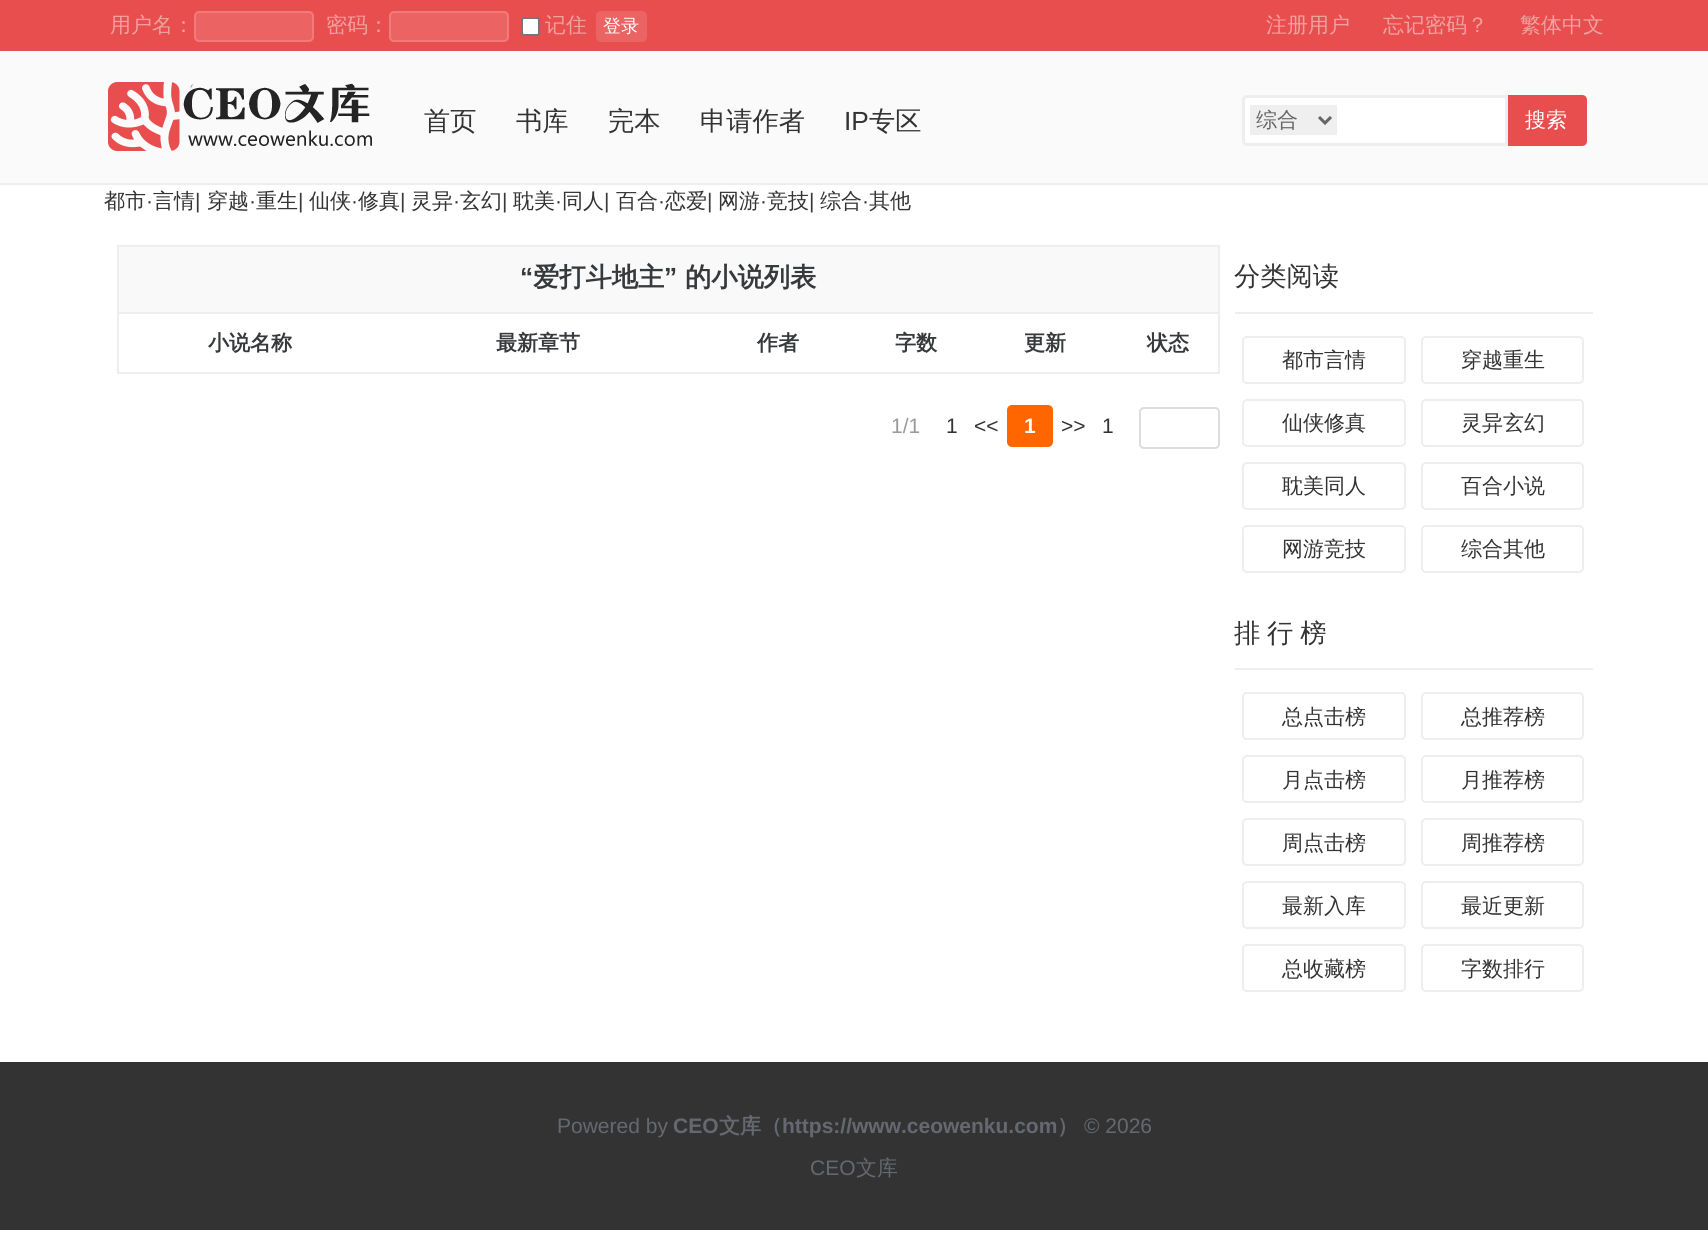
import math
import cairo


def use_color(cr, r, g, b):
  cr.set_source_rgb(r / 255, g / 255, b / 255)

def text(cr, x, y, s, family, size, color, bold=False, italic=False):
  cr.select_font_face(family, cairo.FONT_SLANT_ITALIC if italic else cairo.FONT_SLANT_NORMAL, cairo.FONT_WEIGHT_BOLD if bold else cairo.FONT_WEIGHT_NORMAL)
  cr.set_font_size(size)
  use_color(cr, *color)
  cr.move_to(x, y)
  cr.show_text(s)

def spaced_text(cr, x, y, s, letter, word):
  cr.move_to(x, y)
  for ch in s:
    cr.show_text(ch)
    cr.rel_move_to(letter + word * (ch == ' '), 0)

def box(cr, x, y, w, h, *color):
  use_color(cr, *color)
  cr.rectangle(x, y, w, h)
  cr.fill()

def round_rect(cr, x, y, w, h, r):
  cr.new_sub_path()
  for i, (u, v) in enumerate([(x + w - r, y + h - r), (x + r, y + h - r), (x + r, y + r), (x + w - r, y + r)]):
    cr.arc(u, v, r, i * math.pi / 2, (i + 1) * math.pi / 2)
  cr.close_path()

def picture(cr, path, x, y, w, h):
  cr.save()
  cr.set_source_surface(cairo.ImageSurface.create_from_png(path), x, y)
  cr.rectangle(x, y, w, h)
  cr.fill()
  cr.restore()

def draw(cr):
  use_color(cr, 255, 255, 255)
  cr.paint()
  box(cr, 0, 0, 1708, 51, 232, 78, 78)
  use_color(cr, 236, 99, 99)
  round_rect(cr, 195, 12, 118, 29, 4)
  cr.fill_preserve()
  use_color(cr, 243, 122, 122)
  cr.stroke()
  use_color(cr, 236, 99, 99)
  round_rect(cr, 390, 12, 118, 29, 4)
  cr.fill_preserve()
  use_color(cr, 243, 122, 122)
  cr.stroke()
  use_color(cr, 255, 255, 255)
  round_rect(cr, 522, 18, 17, 17, 2)
  cr.fill_preserve()
  use_color(cr, 118, 118, 118)
  cr.stroke()
  use_color(cr, 236, 99, 99)
  round_rect(cr, 596, 11, 51, 31, 5)
  cr.fill()
  box(cr, 0, 51, 1708, 132, 250, 250, 250)
  box(cr, 0, 183, 1708, 2, 238, 238, 238)
  picture(cr, "img_01.png", 108, 82, 264, 69)
  use_color(cr, 232, 78, 78)
  cr.new_path()
  cr.move_to(1505, 95)
  cr.line_to(1582, 95)
  cr.curve_to(1585, 95, 1587, 97, 1587, 100)
  cr.line_to(1587, 141)
  cr.curve_to(1587, 144, 1585, 146, 1582, 146)
  cr.line_to(1505, 146)
  cr.close_path()
  cr.fill()
  use_color(cr, 255, 255, 255)
  cr.new_path()
  cr.move_to(1247, 96.5)
  cr.line_to(1506.5, 96.5)
  cr.line_to(1506.5, 144.5)
  cr.line_to(1247, 144.5)
  cr.curve_to(1245, 144.5, 1243.5, 143, 1243.5, 141)
  cr.line_to(1243.5, 100)
  cr.curve_to(1243.5, 98, 1245, 96.5, 1247, 96.5)
  cr.close_path()
  cr.fill_preserve()
  use_color(cr, 238, 238, 238)
  cr.set_line_width(3)
  cr.stroke()
  box(cr, 1250, 105, 87, 30, 239, 239, 239)
  cr.new_path()
  cr.move_to(1319, 117)
  cr.line_to(1325, 123)
  cr.line_to(1331, 117)
  use_color(cr, 102, 102, 102)
  cr.stroke()
  box(cr, 117, 245, 1103, 2, 238, 238, 238)
  box(cr, 1218, 245, 2, 129, 238, 238, 238)
  box(cr, 117, 372, 1103, 2, 238, 238, 238)
  box(cr, 117, 245, 2, 129, 238, 238, 238)
  box(cr, 119, 247, 1099, 65, 249, 249, 249)
  box(cr, 117, 312, 1103, 2, 236, 238, 239)
  use_color(cr, 255, 102, 0)
  round_rect(cr, 1007, 405, 46, 42, 5)
  cr.fill()
  round_rect(cr, 1140, 408, 79, 40, 4)
  use_color(cr, 221, 221, 221)
  cr.set_line_width(2)
  cr.stroke()
  box(cr, 1235, 312, 358, 2, 238, 238, 238)
  round_rect(cr, 1243, 337, 162, 46, 4)
  cr.stroke()
  round_rect(cr, 1422, 337, 161, 46, 4)
  cr.stroke()
  round_rect(cr, 1243, 400, 162, 46, 4)
  cr.stroke()
  round_rect(cr, 1422, 400, 161, 46, 4)
  cr.stroke()
  round_rect(cr, 1243, 463, 162, 46, 4)
  cr.stroke()
  round_rect(cr, 1422, 463, 161, 46, 4)
  cr.stroke()
  round_rect(cr, 1243, 526, 162, 46, 4)
  cr.stroke()
  round_rect(cr, 1422, 526, 161, 46, 4)
  cr.stroke()
  box(cr, 1235, 668, 358, 2, 238, 238, 238)
  round_rect(cr, 1243, 693, 162, 46, 4)
  cr.stroke()
  round_rect(cr, 1422, 693, 161, 46, 4)
  cr.stroke()
  round_rect(cr, 1243, 756, 162, 46, 4)
  cr.stroke()
  round_rect(cr, 1422, 756, 161, 46, 4)
  cr.stroke()
  round_rect(cr, 1243, 819, 162, 46, 4)
  cr.stroke()
  round_rect(cr, 1422, 819, 161, 46, 4)
  cr.stroke()
  round_rect(cr, 1243, 882, 162, 46, 4)
  cr.stroke()
  round_rect(cr, 1422, 882, 161, 46, 4)
  cr.stroke()
  round_rect(cr, 1243, 945, 162, 46, 4)
  cr.stroke()
  round_rect(cr, 1422, 945, 161, 46, 4)
  cr.stroke()
  box(cr, 0, 1062, 1708, 168, 51, 51, 51)
  text(cr, 110, 32, "用户名：", "WenQuanYi Zen Hei Medium", 21, (241, 161, 161))
  text(cr, 326, 32, "密码：", "WenQuanYi Zen Hei Medium", 21, (241, 161, 161))
  text(cr, 545, 32, "记住", "WenQuanYi Zen Hei Medium", 21, (241, 161, 161))
  text(cr, 603, 32, "登录", "WenQuanYi Zen Hei Medium", 18, (255, 255, 255))
  text(cr, 1266, 32, "注册用户", "WenQuanYi Zen Hei Medium", 21, (241, 161, 161))
  text(cr, 1383, 32, "忘记密码？", "WenQuanYi Zen Hei Medium", 21, (241, 161, 161))
  text(cr, 1520, 32, "繁体中文", "WenQuanYi Zen Hei Medium", 21, (241, 161, 161))
  text(cr, 424, 130, "首页", "WenQuanYi Zen Hei Medium", 26.25, (51, 51, 51))
  text(cr, 516, 130, "书库", "WenQuanYi Zen Hei Medium", 26.25, (51, 51, 51))
  text(cr, 608, 130, "完本", "WenQuanYi Zen Hei Medium", 26.25, (51, 51, 51))
  text(cr, 700, 130, "申请作者", "WenQuanYi Zen Hei Medium", 26.25, (51, 51, 51))
  text(cr, 844, 130, "IP", "Liberation Sans", 26.25, (51, 51, 51))
  text(cr, 869, 130, "专区", "WenQuanYi Zen Hei Medium", 26.25, (51, 51, 51))
  text(cr, 1256, 127, "综合", "WenQuanYi Zen Hei Medium", 21, (102, 102, 102))
  text(cr, 1525, 127, "搜索", "WenQuanYi Zen Hei Medium", 21, (255, 255, 255))
  text(cr, 104, 208, "都市", "WenQuanYi Zen Hei Medium", 21, (51, 51, 51))
  text(cr, 146, 208, "·", "Liberation Sans", 21, (51, 51, 51))
  text(cr, 153, 208, "言情", "WenQuanYi Zen Hei Medium", 21, (51, 51, 51))
  text(cr, 195, 208, "|", "Liberation Sans", 21, (55, 58, 60))
  text(cr, 207, 208, "穿越", "WenQuanYi Zen Hei Medium", 21, (51, 51, 51))
  text(cr, 249, 208, "·", "Liberation Sans", 21, (51, 51, 51))
  text(cr, 256, 208, "重生", "WenQuanYi Zen Hei Medium", 21, (51, 51, 51))
  text(cr, 298, 208, "|", "Liberation Sans", 21, (55, 58, 60))
  text(cr, 309, 208, "仙侠", "WenQuanYi Zen Hei Medium", 21, (51, 51, 51))
  text(cr, 351, 208, "·", "Liberation Sans", 21, (51, 51, 51))
  text(cr, 358, 208, "修真", "WenQuanYi Zen Hei Medium", 21, (51, 51, 51))
  text(cr, 400, 208, "|", "Liberation Sans", 21, (55, 58, 60))
  text(cr, 411, 208, "灵异", "WenQuanYi Zen Hei Medium", 21, (51, 51, 51))
  text(cr, 453, 208, "·", "Liberation Sans", 21, (51, 51, 51))
  text(cr, 460, 208, "玄幻", "WenQuanYi Zen Hei Medium", 21, (51, 51, 51))
  text(cr, 502, 208, "|", "Liberation Sans", 21, (55, 58, 60))
  text(cr, 513, 208, "耽美", "WenQuanYi Zen Hei Medium", 21, (51, 51, 51))
  text(cr, 555, 208, "·", "Liberation Sans", 21, (51, 51, 51))
  text(cr, 562, 208, "同人", "WenQuanYi Zen Hei Medium", 21, (51, 51, 51))
  text(cr, 604, 208, "|", "Liberation Sans", 21, (55, 58, 60))
  text(cr, 616, 208, "百合", "WenQuanYi Zen Hei Medium", 21, (51, 51, 51))
  text(cr, 658, 208, "·", "Liberation Sans", 21, (51, 51, 51))
  text(cr, 665, 208, "恋爱", "WenQuanYi Zen Hei Medium", 21, (51, 51, 51))
  text(cr, 707, 208, "|", "Liberation Sans", 21, (55, 58, 60))
  text(cr, 718, 208, "网游", "WenQuanYi Zen Hei Medium", 21, (51, 51, 51))
  text(cr, 760, 208, "·", "Liberation Sans", 21, (51, 51, 51))
  text(cr, 767, 208, "竞技", "WenQuanYi Zen Hei Medium", 21, (51, 51, 51))
  text(cr, 809, 208, "|", "Liberation Sans", 21, (55, 58, 60))
  text(cr, 820, 208, "综合", "WenQuanYi Zen Hei Medium", 21, (51, 51, 51))
  text(cr, 862, 208, "·", "Liberation Sans", 21, (51, 51, 51))
  text(cr, 869, 208, "其他", "WenQuanYi Zen Hei Medium", 21, (51, 51, 51))
  text(cr, 520, 286, "“", "Liberation Sans", 26.25, (55, 58, 60), bold=True)
  text(cr, 533, 286, "爱打斗地主", "WenQuanYi Zen Hei", 26.25, (55, 58, 60), bold=True)
  text(cr, 664, 286, "”", "Liberation Sans", 26.25, (55, 58, 60), bold=True)
  text(cr, 685, 286, "的小说列表", "WenQuanYi Zen Hei", 26.25, (55, 58, 60), bold=True)
  text(cr, 208, 350, "小说名称", "WenQuanYi Zen Hei", 21, (55, 58, 60), bold=True)
  text(cr, 496, 350, "最新章节", "WenQuanYi Zen Hei", 21, (55, 58, 60), bold=True)
  text(cr, 757, 350, "作者", "WenQuanYi Zen Hei", 21, (55, 58, 60), bold=True)
  text(cr, 895, 350, "字数", "WenQuanYi Zen Hei", 21, (55, 58, 60), bold=True)
  text(cr, 1024, 350, "更新", "WenQuanYi Zen Hei", 21, (55, 58, 60), bold=True)
  text(cr, 1147, 350, "状态", "WenQuanYi Zen Hei", 21, (55, 58, 60), bold=True)
  text(cr, 891, 433, "1/1", "Liberation Sans", 21, (153, 153, 153))
  text(cr, 946, 433, "1", "Liberation Sans", 21, (51, 51, 51))
  text(cr, 974, 433, "<<", "Liberation Sans", 21, (51, 51, 51))
  text(cr, 1024, 433, "1", "Liberation Sans", 21, (255, 255, 255), bold=True)
  text(cr, 1061, 433, ">>", "Liberation Sans", 21, (51, 51, 51))
  text(cr, 1102, 433, "1", "Liberation Sans", 21, (51, 51, 51))
  text(cr, 1234, 285, "分类阅读", "WenQuanYi Zen Hei Medium", 26.25, (51, 51, 51))
  text(cr, 1282, 367, "都市言情", "WenQuanYi Zen Hei Medium", 21, (51, 51, 51))
  text(cr, 1461, 367, "穿越重生", "WenQuanYi Zen Hei Medium", 21, (51, 51, 51))
  text(cr, 1282, 430, "仙侠修真", "WenQuanYi Zen Hei Medium", 21, (51, 51, 51))
  text(cr, 1461, 430, "灵异玄幻", "WenQuanYi Zen Hei Medium", 21, (51, 51, 51))
  text(cr, 1282, 493, "耽美同人", "WenQuanYi Zen Hei Medium", 21, (51, 51, 51))
  text(cr, 1461, 493, "百合小说", "WenQuanYi Zen Hei Medium", 21, (51, 51, 51))
  text(cr, 1282, 556, "网游竞技", "WenQuanYi Zen Hei Medium", 21, (51, 51, 51))
  text(cr, 1461, 556, "综合其他", "WenQuanYi Zen Hei Medium", 21, (51, 51, 51))
  cr.set_font_size(26.25)
  spaced_text(cr, 1234, 642, "排 行 榜", 0, -1)
  text(cr, 1282, 724, "总点击榜", "WenQuanYi Zen Hei Medium", 21, (51, 51, 51))
  text(cr, 1461, 724, "总推荐榜", "WenQuanYi Zen Hei Medium", 21, (51, 51, 51))
  text(cr, 1282, 787, "月点击榜", "WenQuanYi Zen Hei Medium", 21, (51, 51, 51))
  text(cr, 1461, 787, "月推荐榜", "WenQuanYi Zen Hei Medium", 21, (51, 51, 51))
  text(cr, 1282, 850, "周点击榜", "WenQuanYi Zen Hei Medium", 21, (51, 51, 51))
  text(cr, 1461, 850, "周推荐榜", "WenQuanYi Zen Hei Medium", 21, (51, 51, 51))
  text(cr, 1282, 913, "最新入库", "WenQuanYi Zen Hei Medium", 21, (51, 51, 51))
  text(cr, 1461, 913, "最近更新", "WenQuanYi Zen Hei Medium", 21, (51, 51, 51))
  text(cr, 1282, 976, "总收藏榜", "WenQuanYi Zen Hei Medium", 21, (51, 51, 51))
  text(cr, 1461, 976, "字数排行", "WenQuanYi Zen Hei Medium", 21, (51, 51, 51))
  text(cr, 557, 1133, "Powered by", "Liberation Sans", 21, (101, 104, 113))
  text(cr, 673, 1133, "CEO", "Liberation Sans", 21, (101, 104, 113), bold=True)
  text(cr, 719, 1133, "文库（", "WenQuanYi Zen Hei", 21, (101, 104, 113), bold=True)
  text(cr, 782, 1133, "https://www.ceowenku.com", "Liberation Sans", 21, (101, 104, 113), bold=True)
  text(cr, 1057, 1133, "）", "WenQuanYi Zen Hei", 21, (101, 104, 113), bold=True)
  text(cr, 1084, 1133, "© 2026", "Liberation Sans", 21, (101, 104, 113))
  text(cr, 810, 1175, "CEO", "Liberation Sans", 21, (101, 104, 113))
  text(cr, 856, 1175, "文库", "WenQuanYi Zen Hei Medium", 21, (101, 104, 113))


surface = cairo.ImageSurface(cairo.FORMAT_RGB24, 1708, 1234)
cr = cairo.Context(surface)
options = cairo.FontOptions()
options.set_hint_metrics(cairo.HINT_METRICS_OFF)
options.set_hint_style(cairo.HINT_STYLE_NONE)
cr.set_font_options(options)
cr.set_miter_limit(4)
draw(cr)
surface.write_to_png("out.png")
